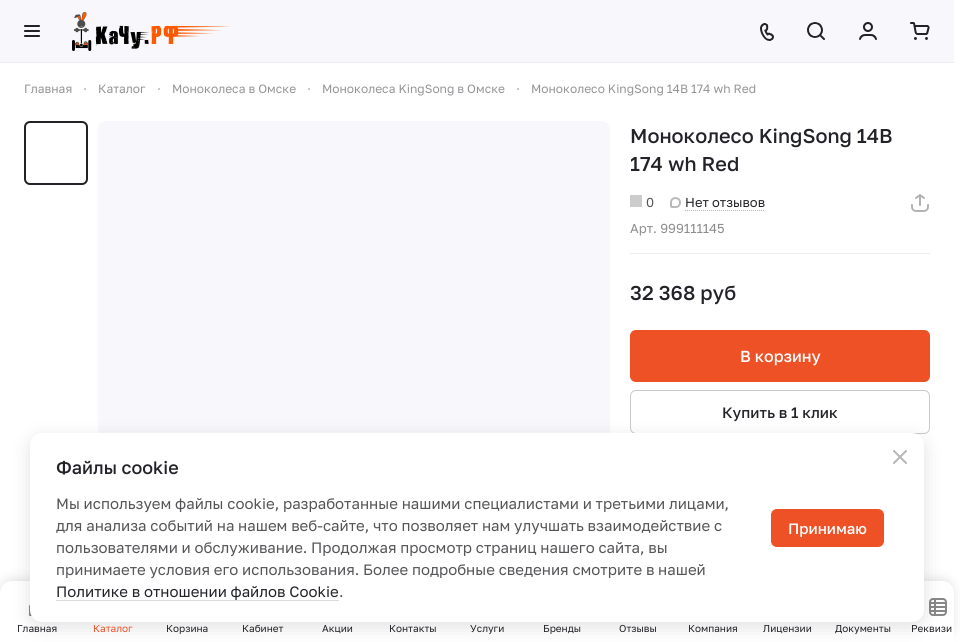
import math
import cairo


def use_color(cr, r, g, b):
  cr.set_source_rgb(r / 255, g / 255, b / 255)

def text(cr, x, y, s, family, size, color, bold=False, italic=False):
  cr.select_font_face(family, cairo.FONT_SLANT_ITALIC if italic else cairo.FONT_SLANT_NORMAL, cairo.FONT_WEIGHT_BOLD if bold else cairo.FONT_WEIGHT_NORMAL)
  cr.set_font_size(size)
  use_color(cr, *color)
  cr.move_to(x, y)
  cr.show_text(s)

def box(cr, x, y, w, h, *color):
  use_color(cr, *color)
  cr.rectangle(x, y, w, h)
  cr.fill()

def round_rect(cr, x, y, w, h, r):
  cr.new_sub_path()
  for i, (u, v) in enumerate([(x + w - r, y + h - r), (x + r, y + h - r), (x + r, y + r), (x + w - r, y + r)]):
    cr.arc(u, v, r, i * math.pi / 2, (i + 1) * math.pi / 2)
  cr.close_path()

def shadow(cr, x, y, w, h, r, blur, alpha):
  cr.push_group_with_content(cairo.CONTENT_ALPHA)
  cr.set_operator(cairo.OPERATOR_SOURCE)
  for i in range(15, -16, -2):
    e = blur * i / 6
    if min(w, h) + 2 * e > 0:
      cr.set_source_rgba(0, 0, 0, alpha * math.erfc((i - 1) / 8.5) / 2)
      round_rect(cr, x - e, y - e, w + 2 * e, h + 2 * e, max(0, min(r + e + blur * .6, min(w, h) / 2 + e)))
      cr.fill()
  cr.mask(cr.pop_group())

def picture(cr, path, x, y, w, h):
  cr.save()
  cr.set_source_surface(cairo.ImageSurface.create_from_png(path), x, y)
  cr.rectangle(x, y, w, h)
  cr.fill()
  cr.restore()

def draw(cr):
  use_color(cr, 255, 255, 255)
  cr.paint()
  box(cr, 0, 62, 954, 1, 235, 236, 239)
  box(cr, 0, 0, 954, 62, 248, 248, 252)
  picture(cr, "img_01.png", 24, 25, 16, 12)
  picture(cr, "img_02.png", 72, 12, 159, 39)
  picture(cr, "img_03.png", 760, 23, 14, 18)
  picture(cr, "img_04.png", 807, 22, 18, 18)
  picture(cr, "img_05.png", 859, 22, 18, 18)
  picture(cr, "img_06.png", 910, 22, 20, 18)
  use_color(cr, 184, 184, 185)
  cr.arc(85, 89, 1, 0, 2 * math.pi)
  cr.fill()
  cr.arc(159, 89, 1, 0, 2 * math.pi)
  cr.fill()
  cr.arc(309, 89, 1, 0, 2 * math.pi)
  cr.fill()
  cr.arc(518, 89, 1, 0, 2 * math.pi)
  cr.fill()
  round_rect(cr, 25, 122, 62, 62, 5)
  use_color(cr, 34, 34, 40)
  cr.stroke()
  use_color(cr, 248, 248, 252)
  round_rect(cr, 98, 121, 512, 512, 8)
  cr.fill()
  box(cr, 630, 195, 12, 12, 204, 204, 204)
  picture(cr, "img_07.png", 670, 197, 11, 11)
  cr.new_path()
  cr.move_to(685, 210.5)
  cr.line_to(765, 210.5)
  use_color(cr, 184, 184, 186)
  cr.set_line_width(1)
  cr.set_dash([1, 1])
  cr.stroke()
  picture(cr, "img_08.png", 911, 194, 18, 18)
  box(cr, 630, 253, 300, 1, 235, 236, 239)
  use_color(cr, 238, 81, 38)
  round_rect(cr, 630.5, 330.5, 299, 51, 5.5)
  cr.fill_preserve()
  cr.set_dash([])
  cr.stroke()
  round_rect(cr, 630.5, 390.5, 299, 43, 5.5)
  use_color(cr, 201, 201, 202)
  cr.stroke()
  use_color(cr, 0, 0, 0)
  shadow(cr, 0, 578, 954, 61, 12, 5, 0.1)
  use_color(cr, 255, 255, 255)
  cr.new_path()
  cr.move_to(12, 581)
  cr.line_to(942, 581)
  cr.curve_to(948.5, 581, 954, 586.5, 954, 593)
  cr.line_to(954, 642)
  cr.line_to(0, 642)
  cr.line_to(0, 593)
  cr.curve_to(0, 586.5, 5.5, 581, 12, 581)
  cr.close_path()
  cr.fill()
  picture(cr, "img_10.png", 29, 605, 3, 11)
  picture(cr, "img_11.png", 929, 598, 18, 18)
  use_color(cr, 0, 0, 0)
  shadow(cr, 30, 438, 894, 189, 12, 10, 0.12)
  use_color(cr, 255, 255, 255)
  round_rect(cr, 30, 433, 894, 189, 12)
  cr.fill()
  picture(cr, "img_09.png", 893, 450, 14, 14)
  box(cr, 56, 600, 283, 1, 220, 220, 221)
  use_color(cr, 238, 81, 38)
  round_rect(cr, 771.5, 509.5, 112, 37, 5.5)
  cr.fill_preserve()
  cr.stroke()
  text(cr, 24, 93, "Главная", "Golos Text", 12, (149, 149, 152))
  text(cr, 98, 93, "Каталог", "Golos Text", 12, (149, 149, 152))
  text(cr, 172, 93, "Моноколеса в Омске", "Golos Text", 12, (149, 149, 152))
  text(cr, 322, 93, "Моноколеса KingSong в Омске", "Golos Text", 12, (149, 149, 152))
  text(cr, 531, 93, "Моноколесо KingSong 14B 174 wh Red", "Golos Text", 12, (149, 149, 152))
  text(cr, 630, 143, "Моноколесо KingSong 14B", "Golos Text Medium", 20, (34, 34, 40))
  text(cr, 630, 171, "174 wh Red", "Golos Text Medium", 20, (34, 34, 40))
  text(cr, 646, 207, "0", "Golos Text", 13, (85, 85, 88))
  text(cr, 685, 207, "Нет отзывов", "Golos Text", 13, (34, 34, 40))
  text(cr, 630, 233, "Арт. 999111145", "Golos Text", 13, (141, 141, 141))
  text(cr, 630, 300, "32 368 руб", "Golos Text Medium", 20, (34, 34, 40))
  text(cr, 740, 362, "В корзину", "Golos Text Medium", 16, (255, 255, 255))
  text(cr, 722, 418, "Купить в 1 клик", "Golos Text Medium", 15, (34, 34, 40))
  text(cr, 56, 474, "Файлы cookie", "Golos Text Medium", 18, (34, 34, 40))
  text(cr, 56, 509, "Мы используем файлы cookie, разработанные нашими специалистами и третьими лицами,", "Golos Text", 15, (85, 85, 88))
  text(cr, 56, 531, "для анализа событий на нашем веб-сайте, что позволяет нам улучшать взаимодействие с", "Golos Text", 15, (85, 85, 88))
  text(cr, 56, 553, "пользователями и обслуживание. Продолжая просмотр страниц нашего сайта, вы", "Golos Text", 15, (85, 85, 88))
  text(cr, 56, 575, "принимаете условия его использования. Более подробные сведения смотрите в нашей", "Golos Text", 15, (85, 85, 88))
  text(cr, 56, 597, "Политике в отношении файлов Cookie", "Golos Text", 15, (34, 34, 40))
  text(cr, 339, 597, ".", "Golos Text", 15, (85, 85, 88))
  text(cr, 788, 534, "Принимаю", "Golos Text Medium", 15, (255, 255, 255))
  text(cr, 17, 632, "Главная", "Golos Text", 10, (34, 34, 40))
  text(cr, 93, 632, "Каталог", "Golos Text", 10, (238, 81, 38))
  text(cr, 166, 632, "Корзина", "Golos Text", 10, (34, 34, 40))
  text(cr, 242, 632, "Кабинет", "Golos Text", 10, (34, 34, 40))
  text(cr, 322, 632, "Акции", "Golos Text", 10, (34, 34, 40))
  text(cr, 389, 632, "Контакты", "Golos Text", 10, (34, 34, 40))
  text(cr, 470, 632, "Услуги", "Golos Text", 10, (34, 34, 40))
  text(cr, 543, 632, "Бренды", "Golos Text", 10, (34, 34, 40))
  text(cr, 619, 632, "Отзывы", "Golos Text", 10, (34, 34, 40))
  text(cr, 688, 632, "Компания", "Golos Text", 10, (34, 34, 40))
  text(cr, 763, 632, "Лицензии", "Golos Text", 10, (34, 34, 40))
  text(cr, 835, 632, "Документы", "Golos Text", 10, (34, 34, 40))
  text(cr, 911, 632, "Реквизи", "Golos Text", 10, (34, 34, 40))


surface = cairo.ImageSurface(cairo.FORMAT_RGB24, 960, 642)
cr = cairo.Context(surface)
options = cairo.FontOptions()
options.set_hint_metrics(cairo.HINT_METRICS_OFF)
options.set_hint_style(cairo.HINT_STYLE_NONE)
cr.set_font_options(options)
cr.set_miter_limit(4)
draw(cr)
surface.write_to_png("out.png")
